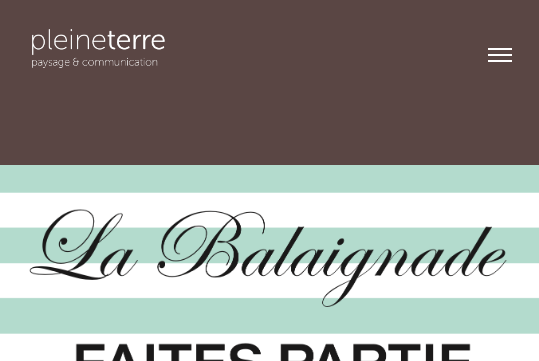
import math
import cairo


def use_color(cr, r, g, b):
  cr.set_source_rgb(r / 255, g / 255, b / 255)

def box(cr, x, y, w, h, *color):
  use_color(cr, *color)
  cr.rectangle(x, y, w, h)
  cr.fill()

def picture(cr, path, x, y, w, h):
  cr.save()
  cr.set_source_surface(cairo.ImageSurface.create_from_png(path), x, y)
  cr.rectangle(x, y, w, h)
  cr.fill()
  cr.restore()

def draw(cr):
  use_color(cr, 90, 70, 68)
  cr.paint()
  picture(cr, "img_01.png", 32, 29, 133, 39)
  box(cr, 488, 48, 24, 2, 255, 255, 255)
  box(cr, 488, 54, 24, 2, 255, 255, 255)
  box(cr, 488, 60, 24, 2, 255, 255, 255)
  picture(cr, "img_02.png", 0, 165, 539, 196)


surface = cairo.ImageSurface(cairo.FORMAT_RGB24, 539, 361)
cr = cairo.Context(surface)
options = cairo.FontOptions()
options.set_hint_metrics(cairo.HINT_METRICS_OFF)
options.set_hint_style(cairo.HINT_STYLE_NONE)
cr.set_font_options(options)
cr.set_miter_limit(4)
draw(cr)
surface.write_to_png("out.png")
